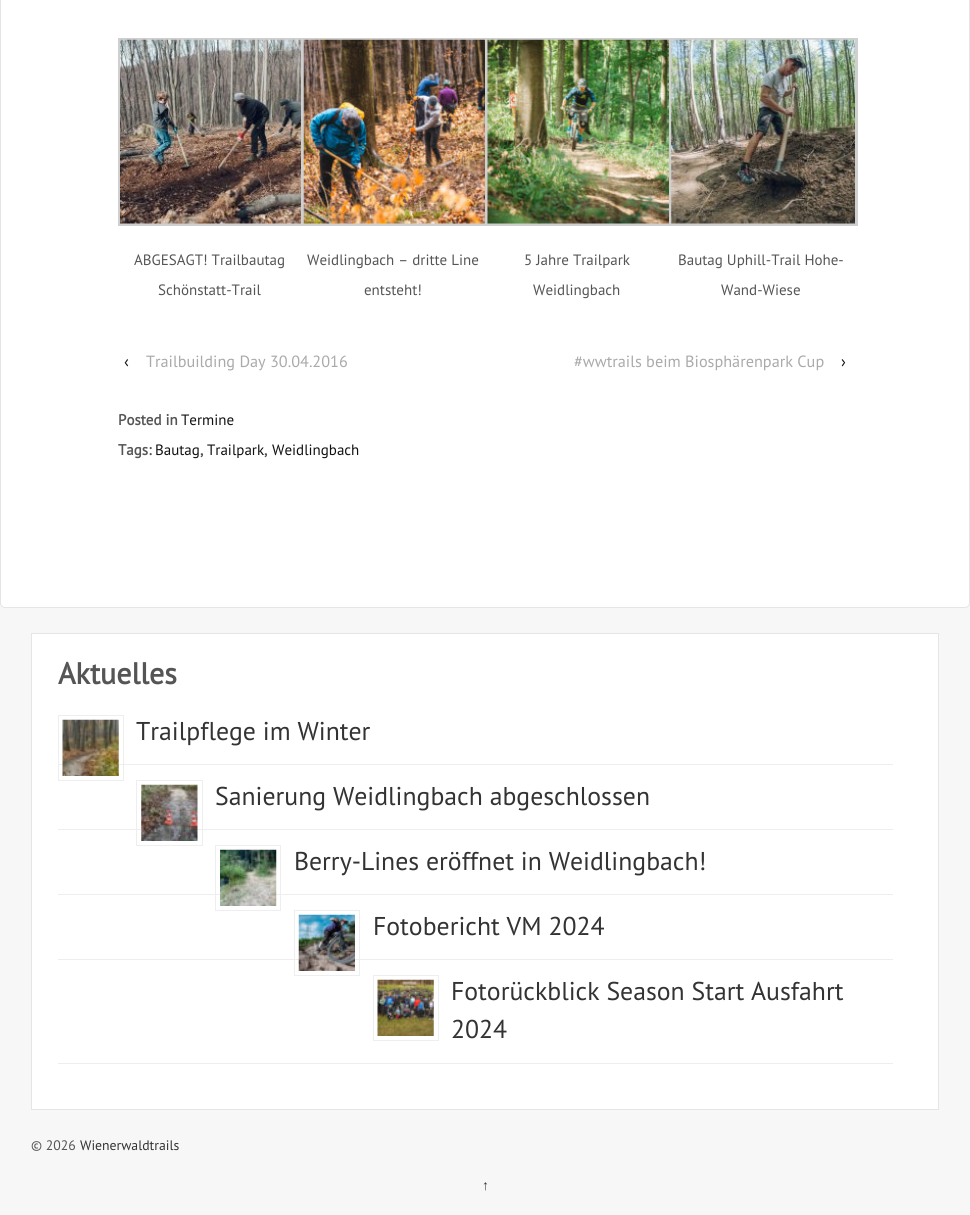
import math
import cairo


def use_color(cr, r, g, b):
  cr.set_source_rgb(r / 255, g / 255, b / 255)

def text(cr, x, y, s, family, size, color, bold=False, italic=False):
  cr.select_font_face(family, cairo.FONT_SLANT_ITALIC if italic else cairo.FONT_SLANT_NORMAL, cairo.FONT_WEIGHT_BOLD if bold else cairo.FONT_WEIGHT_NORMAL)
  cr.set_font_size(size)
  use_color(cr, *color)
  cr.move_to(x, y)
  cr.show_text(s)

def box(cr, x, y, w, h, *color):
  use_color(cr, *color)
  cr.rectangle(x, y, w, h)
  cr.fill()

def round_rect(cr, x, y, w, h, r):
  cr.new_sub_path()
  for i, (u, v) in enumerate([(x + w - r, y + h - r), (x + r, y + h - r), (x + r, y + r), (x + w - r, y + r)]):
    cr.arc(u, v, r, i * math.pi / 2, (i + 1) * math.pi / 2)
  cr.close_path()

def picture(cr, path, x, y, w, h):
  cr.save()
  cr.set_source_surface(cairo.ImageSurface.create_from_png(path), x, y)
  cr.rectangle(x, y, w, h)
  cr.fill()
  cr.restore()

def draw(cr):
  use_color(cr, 247, 247, 247)
  cr.paint()
  use_color(cr, 255, 255, 255)
  round_rect(cr, 0.5, -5.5, 969, 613, 4.5)
  cr.fill_preserve()
  use_color(cr, 229, 229, 229)
  cr.set_line_width(1)
  cr.stroke()
  cr.rectangle(119.5, 39.5, 185, 185)
  use_color(cr, 207, 207, 207)
  cr.set_line_width(3)
  cr.stroke()
  picture(cr, "img_01.png", 120, 39, 181, 185)
  cr.rectangle(302.5, 39.5, 186, 185)
  cr.stroke()
  picture(cr, "img_02.png", 303, 39, 182, 185)
  cr.rectangle(486.5, 39.5, 186, 185)
  cr.stroke()
  picture(cr, "img_03.png", 487, 39, 182, 185)
  cr.rectangle(670.5, 39.5, 186, 185)
  cr.stroke()
  picture(cr, "img_04.png", 671, 39, 184, 185)
  use_color(cr, 255, 255, 255)
  cr.rectangle(31.5, 633.5, 907, 476)
  cr.fill_preserve()
  use_color(cr, 229, 229, 229)
  cr.set_line_width(1)
  cr.stroke()
  box(cr, 58, 764, 835, 1, 238, 238, 238)
  cr.rectangle(58.5, 715.5, 65, 65)
  cr.stroke()
  picture(cr, "img_05.png", 62, 719, 57, 57)
  box(cr, 58, 829, 835, 1, 238, 238, 238)
  cr.rectangle(136.5, 780.5, 66, 65)
  cr.stroke()
  picture(cr, "img_06.png", 141, 784, 57, 57)
  box(cr, 58, 894, 835, 1, 238, 238, 238)
  cr.rectangle(215.5, 845.5, 65, 65)
  cr.stroke()
  picture(cr, "img_07.png", 220, 849, 57, 57)
  box(cr, 58, 959, 835, 1, 238, 238, 238)
  cr.rectangle(294.5, 910.5, 65, 65)
  cr.stroke()
  picture(cr, "img_08.png", 298, 914, 57, 57)
  box(cr, 58, 1063, 835, 1, 238, 238, 238)
  cr.rectangle(373.5, 975.5, 65, 65)
  cr.stroke()
  picture(cr, "img_09.png", 377, 979, 57, 57)
  text(cr, 134, 265, "ABGESAGT! Trailbautag", "PT Sans", 15, (85, 85, 85))
  text(cr, 158, 295, "Schönstatt-Trail", "PT Sans", 15, (85, 85, 85))
  text(cr, 307, 265, "Weidlingbach – dritte Line", "PT Sans", 15, (85, 85, 85))
  text(cr, 364, 295, "entsteht!", "PT Sans", 15, (85, 85, 85))
  text(cr, 524, 265, "5 Jahre Trailpark", "PT Sans", 15, (85, 85, 85))
  text(cr, 533, 295, "Weidlingbach", "PT Sans", 15, (85, 85, 85))
  text(cr, 678, 265, "Bautag Uphill-Trail Hohe-", "PT Sans", 15, (85, 85, 85))
  text(cr, 721, 295, "Wand-Wiese", "PT Sans", 15, (85, 85, 85))
  text(cr, 124, 367, "‹", "PT Sans", 16.25, (17, 17, 17))
  text(cr, 146, 367, "Trailbuilding Day 30.04.2016", "PT Sans", 16.25, (170, 170, 170))
  text(cr, 574, 367, "#wwtrails beim Biosphärenpark Cup", "PT Sans", 16.25, (170, 170, 170))
  text(cr, 841, 367, "›", "PT Sans", 16.25, (17, 17, 17))
  text(cr, 118, 425, "Posted in", "PT Sans", 15, (85, 85, 85), bold=True)
  text(cr, 181, 425, "Termine", "PT Sans", 15, (17, 17, 17))
  text(cr, 118, 455, "Tags:", "PT Sans", 15, (85, 85, 85), bold=True)
  text(cr, 155, 455, "Bautag", "PT Sans", 15, (17, 17, 17))
  text(cr, 200, 455, ",", "PT Sans", 15, (85, 85, 85), bold=True)
  text(cr, 207, 455, "Trailpark", "PT Sans", 15, (17, 17, 17))
  text(cr, 264, 455, ",", "PT Sans", 15, (85, 85, 85), bold=True)
  text(cr, 272, 455, "Weidlingbach", "PT Sans", 15, (17, 17, 17))
  text(cr, 58, 684, "Aktuelles", "PT Sans", 30, (85, 85, 85), bold=True)
  text(cr, 136, 740, "Trailpflege im Winter", "PT Sans", 25.75, (51, 51, 51))
  text(cr, 215, 805, "Sanierung Weidlingbach abgeschlossen", "PT Sans", 25.75, (51, 51, 51))
  text(cr, 294, 870, "Berry-Lines eröffnet in Weidlingbach!", "PT Sans", 25.75, (51, 51, 51))
  text(cr, 373, 935, "Fotobericht VM 2024", "PT Sans", 25.75, (51, 51, 51))
  text(cr, 451, 1000, "Fotorückblick Season Start Ausfahrt", "PT Sans", 25.75, (51, 51, 51))
  text(cr, 451, 1038, "2024", "PT Sans", 25.75, (51, 51, 51))
  text(cr, 31, 1150, "© 2026", "PT Sans", 13.75, (85, 85, 85))
  text(cr, 80, 1150, "Wienerwaldtrails", "PT Sans", 13.75, (51, 51, 51))
  text(cr, 482, 1190, "↑", "Liberation Serif", 13.75, (51, 51, 51))


surface = cairo.ImageSurface(cairo.FORMAT_RGB24, 970, 1215)
cr = cairo.Context(surface)
options = cairo.FontOptions()
options.set_hint_metrics(cairo.HINT_METRICS_OFF)
options.set_hint_style(cairo.HINT_STYLE_NONE)
cr.set_font_options(options)
cr.set_miter_limit(4)
draw(cr)
surface.write_to_png("out.png")
